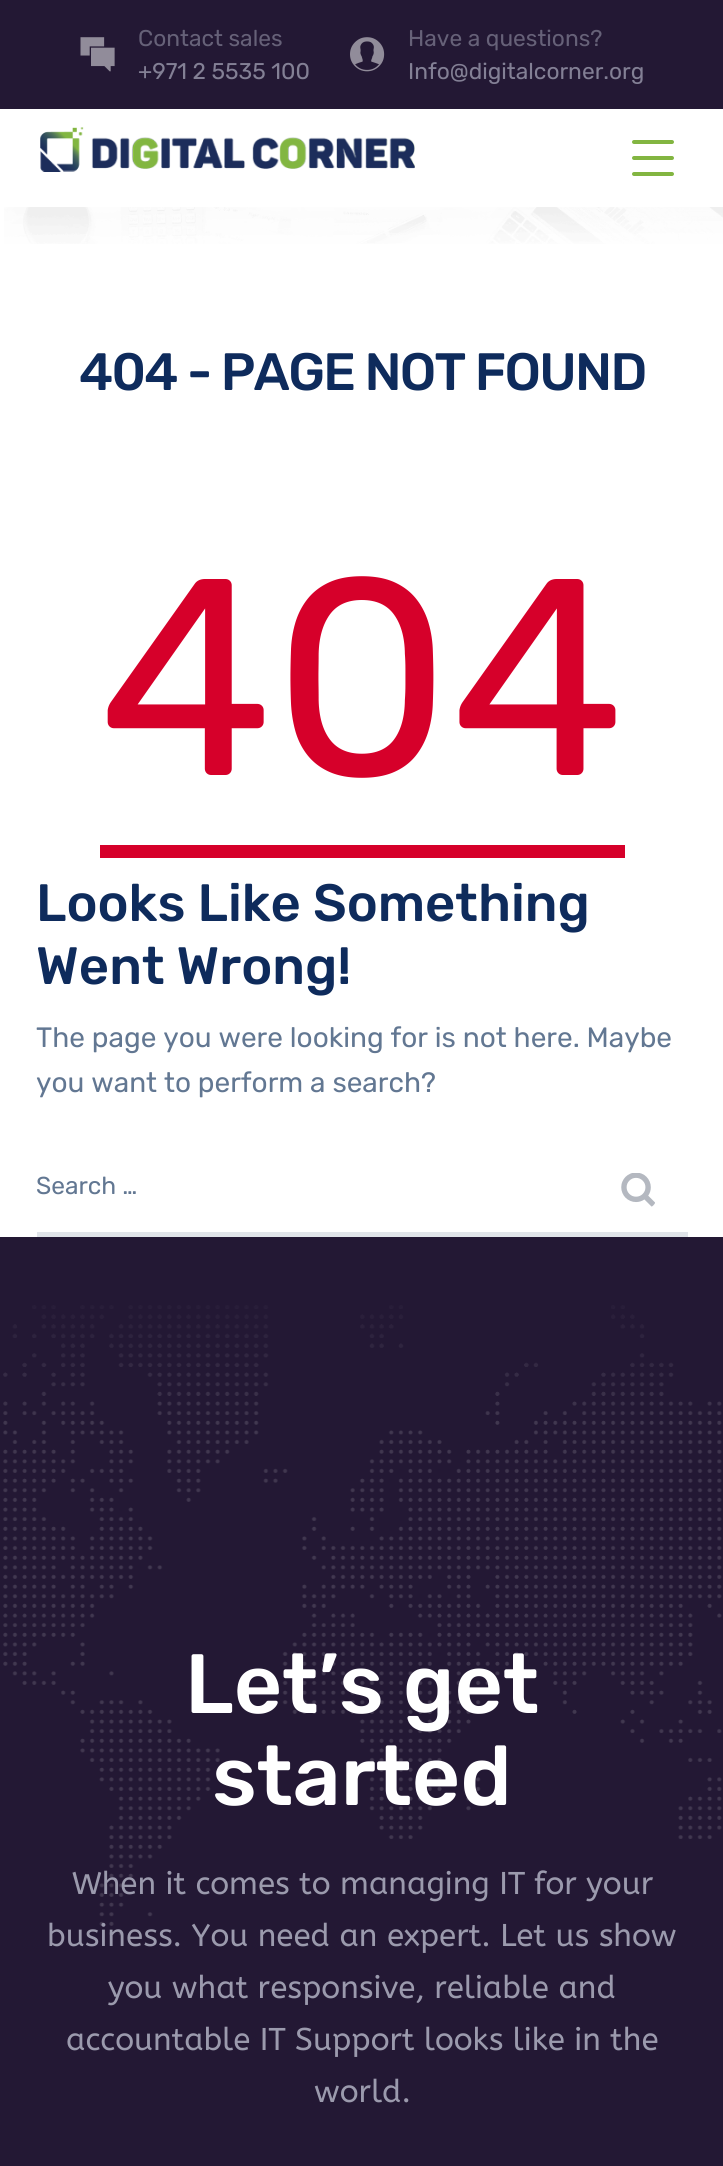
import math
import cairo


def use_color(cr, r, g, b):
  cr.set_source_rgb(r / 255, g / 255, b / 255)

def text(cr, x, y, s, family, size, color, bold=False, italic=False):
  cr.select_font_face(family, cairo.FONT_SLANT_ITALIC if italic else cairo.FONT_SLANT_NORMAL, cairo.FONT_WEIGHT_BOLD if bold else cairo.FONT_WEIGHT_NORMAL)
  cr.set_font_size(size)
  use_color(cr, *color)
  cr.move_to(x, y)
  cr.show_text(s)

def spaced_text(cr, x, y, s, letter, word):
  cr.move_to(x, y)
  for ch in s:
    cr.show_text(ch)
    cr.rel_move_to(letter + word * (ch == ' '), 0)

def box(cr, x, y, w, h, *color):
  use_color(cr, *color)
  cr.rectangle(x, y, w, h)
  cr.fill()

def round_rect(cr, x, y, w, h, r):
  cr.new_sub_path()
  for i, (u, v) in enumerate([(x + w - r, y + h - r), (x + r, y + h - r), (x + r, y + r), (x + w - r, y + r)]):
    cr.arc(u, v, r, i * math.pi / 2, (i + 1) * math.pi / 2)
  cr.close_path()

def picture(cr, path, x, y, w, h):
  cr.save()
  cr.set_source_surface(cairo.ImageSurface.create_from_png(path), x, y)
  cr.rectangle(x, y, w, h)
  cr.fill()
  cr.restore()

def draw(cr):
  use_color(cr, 255, 255, 255)
  cr.paint()
  box(cr, 0, 0, 723, 109, 35, 24, 52)
  picture(cr, "img_01.png", 80, 37, 35, 35)
  picture(cr, "img_02.png", 350, 37, 35, 35)
  picture(cr, "img_03.png", 40, 127, 375, 45)
  use_color(cr, 130, 181, 65)
  round_rect(cr, 632, 140, 42, 4, 2)
  cr.fill()
  round_rect(cr, 632, 172, 42, 4, 2)
  cr.fill()
  round_rect(cr, 632, 156, 42, 4, 2)
  cr.fill()
  picture(cr, "img_04.png", 4, 207, 719, 37)
  box(cr, 100, 845, 525, 13, 214, 0, 42)
  box(cr, 37, 1232, 651, 5, 224, 228, 233)
  picture(cr, "img_05.png", 621, 1173, 34, 34)
  box(cr, 0, 1237, 723, 929, 35, 24, 52)
  picture(cr, "img_06.png", 3, 1305, 719, 631)
  text(cr, 138, 46, "Contact sales", "Rubik", 22.75, (102, 97, 120))
  text(cr, 138, 79, "+971 2 5535 100", "Rubik", 22.75, (131, 128, 149))
  text(cr, 408, 46, "Have a questions?", "Rubik", 22.75, (102, 97, 120))
  text(cr, 408, 79, "Info@digitalcorner.org", "Rubik", 22.75, (131, 128, 149))
  cr.select_font_face("Rubik Medium")
  cr.set_font_size(52.5)
  use_color(cr, 14, 43, 92)
  spaced_text(cr, 79, 390, "404 - PAGE NOT FOUND", -1.75, 0)
  text(cr, 99, 775, "404", "Rubik", 280, (214, 0, 42))
  text(cr, 36, 921, "Looks Like Something", "Rubik Medium", 52.5, (14, 43, 92))
  text(cr, 36, 984, "Went Wrong!", "Rubik Medium", 52.5, (14, 43, 92))
  text(cr, 36, 1047, "The page you were looking for is not here. Maybe", "Rubik", 28, (98, 119, 146))
  text(cr, 36, 1092, "you want to perform a search?", "Rubik", 28, (98, 119, 146))
  text(cr, 36, 1194, "Search …", "Rubik", 24.5, (98, 119, 146))
  text(cr, 185, 1713, "Let’s get", "Rubik Medium", 84, (255, 255, 255))
  text(cr, 212, 1805, "started", "Rubik Medium", 84, (255, 255, 255))
  text(cr, 72, 1894, "When it comes to managing IT for your", "ABeeZee", 31.5, (155, 154, 173))
  text(cr, 47, 1946, "business. You need an expert. Let us show", "ABeeZee", 31.5, (155, 154, 173))
  text(cr, 108, 1998, "you what responsive, reliable and", "ABeeZee", 31.5, (155, 154, 173))
  text(cr, 66, 2050, "accountable IT Support looks like in the", "ABeeZee", 31.5, (155, 154, 173))
  text(cr, 314, 2102, "world.", "ABeeZee", 31.5, (155, 154, 173))


surface = cairo.ImageSurface(cairo.FORMAT_RGB24, 723, 2166)
cr = cairo.Context(surface)
options = cairo.FontOptions()
options.set_hint_metrics(cairo.HINT_METRICS_OFF)
options.set_hint_style(cairo.HINT_STYLE_NONE)
cr.set_font_options(options)
cr.set_miter_limit(4)
draw(cr)
surface.write_to_png("out.png")
